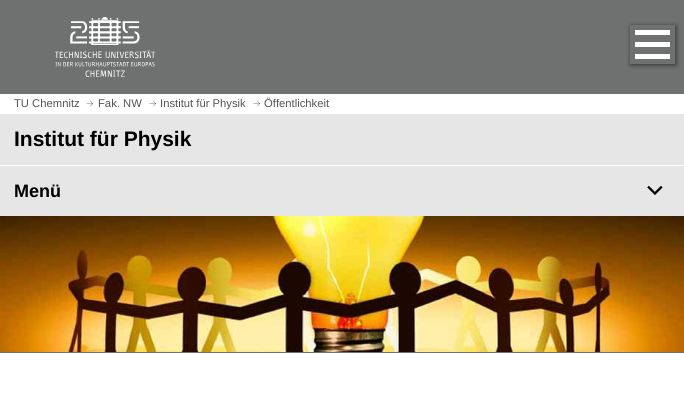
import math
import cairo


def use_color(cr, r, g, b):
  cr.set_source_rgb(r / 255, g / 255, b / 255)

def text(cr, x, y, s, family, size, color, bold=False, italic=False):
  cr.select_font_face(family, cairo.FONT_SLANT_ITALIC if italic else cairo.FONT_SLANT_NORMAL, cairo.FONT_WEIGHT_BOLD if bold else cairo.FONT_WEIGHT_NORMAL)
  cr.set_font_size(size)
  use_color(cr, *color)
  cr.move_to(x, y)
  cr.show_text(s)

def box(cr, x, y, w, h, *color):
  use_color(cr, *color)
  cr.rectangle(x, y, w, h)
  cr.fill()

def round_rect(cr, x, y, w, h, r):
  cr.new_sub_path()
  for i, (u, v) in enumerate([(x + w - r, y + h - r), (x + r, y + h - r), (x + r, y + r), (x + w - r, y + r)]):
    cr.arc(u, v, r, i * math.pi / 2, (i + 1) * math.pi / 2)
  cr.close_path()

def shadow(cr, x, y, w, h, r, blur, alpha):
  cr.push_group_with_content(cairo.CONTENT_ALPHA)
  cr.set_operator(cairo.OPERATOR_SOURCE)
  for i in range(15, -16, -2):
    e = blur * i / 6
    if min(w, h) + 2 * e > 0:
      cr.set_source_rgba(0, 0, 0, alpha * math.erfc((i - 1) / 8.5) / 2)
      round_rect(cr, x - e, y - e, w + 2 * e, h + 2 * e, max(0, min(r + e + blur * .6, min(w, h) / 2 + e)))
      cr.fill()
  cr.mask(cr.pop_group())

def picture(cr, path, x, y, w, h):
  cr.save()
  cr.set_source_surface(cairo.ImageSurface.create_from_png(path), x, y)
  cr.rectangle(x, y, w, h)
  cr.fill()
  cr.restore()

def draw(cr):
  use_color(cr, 230, 230, 230)
  cr.paint()
  box(cr, 0, 0, 684, 94, 111, 112, 112)
  picture(cr, "img_01.png", 54, 17, 102, 60)
  cr.save()
  cr.set_fill_rule(cairo.FILL_RULE_EVEN_ODD)
  cr.new_path()
  cr.move_to(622, 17)
  cr.line_to(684, 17)
  cr.line_to(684, 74)
  cr.line_to(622, 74)
  cr.close_path()
  cr.move_to(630, 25)
  cr.line_to(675, 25)
  cr.line_to(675, 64)
  cr.line_to(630, 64)
  cr.close_path()
  cr.clip()
  use_color(cr, 50, 50, 50)
  shadow(cr, 631, 26, 45, 39, 0, 2.5, 1)
  cr.restore()
  box(cr, 635, 30, 35, 5, 255, 255, 255)
  box(cr, 635, 42, 35, 5, 255, 255, 255)
  box(cr, 635, 54, 35, 5, 255, 255, 255)
  box(cr, 0, 94, 684, 20, 255, 255, 255)
  picture(cr, "img_02.png", 86, 101, 7, 6)
  picture(cr, "img_02.png", 149, 101, 7, 6)
  picture(cr, "img_02.png", 253, 101, 7, 6)
  box(cr, 0, 165, 684, 1, 255, 255, 255)
  picture(cr, "img_03.png", 647, 185, 16, 10)
  box(cr, 0, 353, 684, 45, 255, 255, 255)
  box(cr, 0, 352, 684, 1, 111, 112, 112)
  picture(cr, "img_04.png", 0, 216, 684, 136)
  text(cr, 14, 107, "TU Chemnitz", "Liberation Sans", 11.25, (85, 85, 85))
  text(cr, 98, 107, "Fak. NW", "Liberation Sans", 11.25, (85, 85, 85))
  text(cr, 160, 107, "Institut für Physik", "Liberation Sans", 11.25, (85, 85, 85))
  text(cr, 264, 107, "Öffentlichkeit", "Liberation Sans", 11.25, (85, 85, 85))
  text(cr, 14, 146, "Institut für Physik", "Liberation Sans", 21, (0, 0, 0), bold=True)
  text(cr, 14, 197, "Menü", "Liberation Sans", 18, (0, 0, 0), bold=True)


surface = cairo.ImageSurface(cairo.FORMAT_RGB24, 684, 398)
cr = cairo.Context(surface)
options = cairo.FontOptions()
options.set_hint_metrics(cairo.HINT_METRICS_OFF)
options.set_hint_style(cairo.HINT_STYLE_NONE)
cr.set_font_options(options)
cr.set_miter_limit(4)
draw(cr)
surface.write_to_png("out.png")
